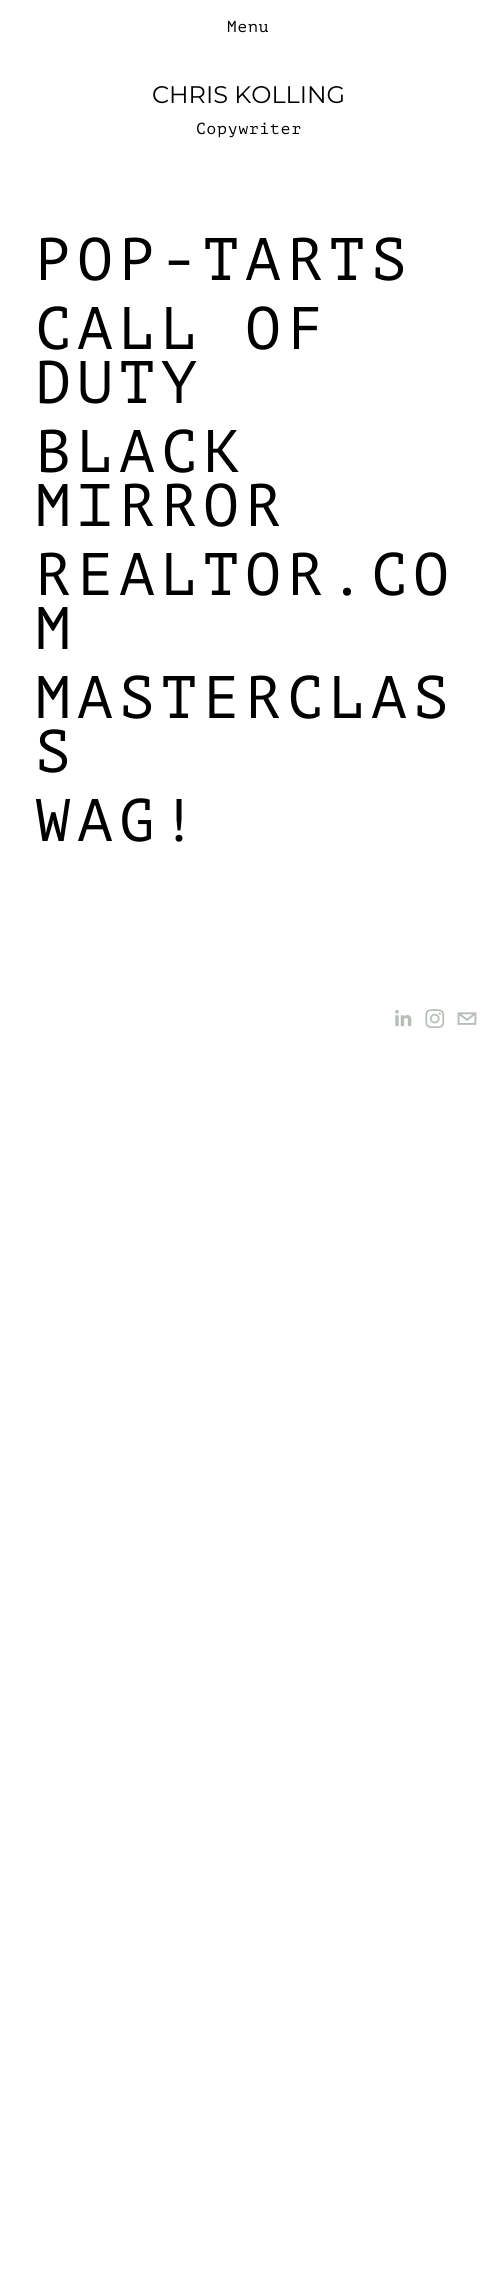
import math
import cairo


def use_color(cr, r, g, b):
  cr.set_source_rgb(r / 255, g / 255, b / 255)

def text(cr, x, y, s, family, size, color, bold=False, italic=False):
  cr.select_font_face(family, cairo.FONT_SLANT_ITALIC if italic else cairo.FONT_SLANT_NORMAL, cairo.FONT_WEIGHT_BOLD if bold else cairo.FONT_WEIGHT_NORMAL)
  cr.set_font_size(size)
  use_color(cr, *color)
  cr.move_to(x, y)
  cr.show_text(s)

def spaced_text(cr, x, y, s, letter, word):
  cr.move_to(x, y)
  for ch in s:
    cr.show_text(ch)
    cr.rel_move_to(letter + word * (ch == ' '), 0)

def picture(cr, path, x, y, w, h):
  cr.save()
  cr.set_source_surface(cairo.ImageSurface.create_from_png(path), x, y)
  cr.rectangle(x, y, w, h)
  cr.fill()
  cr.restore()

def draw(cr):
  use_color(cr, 255, 255, 255)
  cr.paint()
  picture(cr, "img_01.png", 395, 1010, 17, 17)
  picture(cr, "img_02.png", 425, 1009, 20, 19)
  picture(cr, "img_03.png", 457, 1012, 20, 13)
  cr.select_font_face("PT Mono")
  cr.set_font_size(16)
  use_color(cr, 0, 0, 0)
  spaced_text(cr, 227, 32, "Menu", 1, 0)
  text(cr, 152, 103, "CHRIS KOLLING", "Montserrat Thin", 24, (0, 0, 0))
  cr.select_font_face("PT Mono")
  cr.set_font_size(16)
  spaced_text(cr, 196, 134, "Copywriter", 1, 0)
  cr.set_font_size(60)
  spaced_text(cr, 35, 280, "POP-TARTS", 6, 0)
  spaced_text(cr, 35, 349, "CALL OF", 6, 0)
  spaced_text(cr, 35, 403, "DUTY", 6, 0)
  spaced_text(cr, 35, 472, "BLACK", 6, 0)
  spaced_text(cr, 35, 526, "MIRROR", 6, 0)
  spaced_text(cr, 35, 595, "REALTOR.CO", 6, 0)
  spaced_text(cr, 35, 649, "M", 6, 0)
  spaced_text(cr, 35, 718, "MASTERCLAS", 6, 0)
  spaced_text(cr, 35, 772, "S", 6, 0)
  spaced_text(cr, 35, 841, "WAG!", 6, 0)


surface = cairo.ImageSurface(cairo.FORMAT_RGB24, 497, 2291)
cr = cairo.Context(surface)
options = cairo.FontOptions()
options.set_hint_metrics(cairo.HINT_METRICS_OFF)
options.set_hint_style(cairo.HINT_STYLE_NONE)
cr.set_font_options(options)
cr.set_miter_limit(4)
draw(cr)
surface.write_to_png("out.png")
